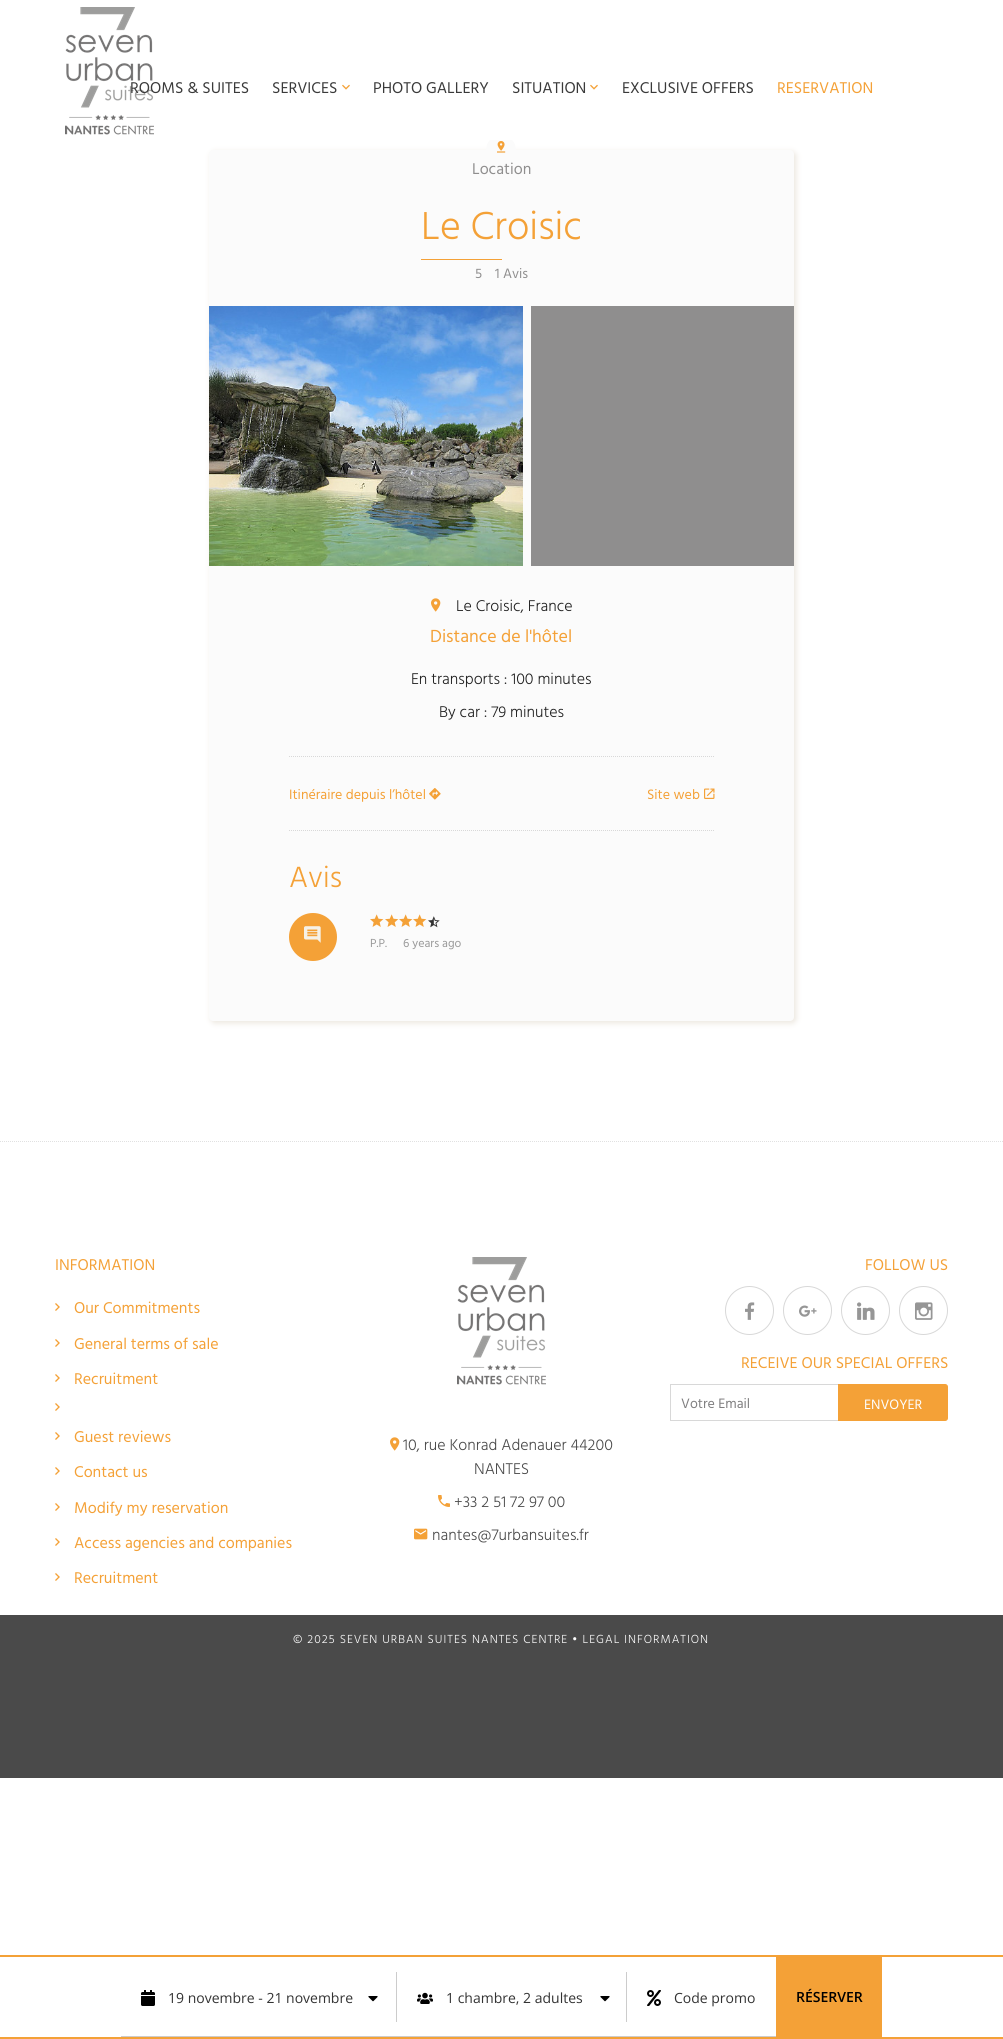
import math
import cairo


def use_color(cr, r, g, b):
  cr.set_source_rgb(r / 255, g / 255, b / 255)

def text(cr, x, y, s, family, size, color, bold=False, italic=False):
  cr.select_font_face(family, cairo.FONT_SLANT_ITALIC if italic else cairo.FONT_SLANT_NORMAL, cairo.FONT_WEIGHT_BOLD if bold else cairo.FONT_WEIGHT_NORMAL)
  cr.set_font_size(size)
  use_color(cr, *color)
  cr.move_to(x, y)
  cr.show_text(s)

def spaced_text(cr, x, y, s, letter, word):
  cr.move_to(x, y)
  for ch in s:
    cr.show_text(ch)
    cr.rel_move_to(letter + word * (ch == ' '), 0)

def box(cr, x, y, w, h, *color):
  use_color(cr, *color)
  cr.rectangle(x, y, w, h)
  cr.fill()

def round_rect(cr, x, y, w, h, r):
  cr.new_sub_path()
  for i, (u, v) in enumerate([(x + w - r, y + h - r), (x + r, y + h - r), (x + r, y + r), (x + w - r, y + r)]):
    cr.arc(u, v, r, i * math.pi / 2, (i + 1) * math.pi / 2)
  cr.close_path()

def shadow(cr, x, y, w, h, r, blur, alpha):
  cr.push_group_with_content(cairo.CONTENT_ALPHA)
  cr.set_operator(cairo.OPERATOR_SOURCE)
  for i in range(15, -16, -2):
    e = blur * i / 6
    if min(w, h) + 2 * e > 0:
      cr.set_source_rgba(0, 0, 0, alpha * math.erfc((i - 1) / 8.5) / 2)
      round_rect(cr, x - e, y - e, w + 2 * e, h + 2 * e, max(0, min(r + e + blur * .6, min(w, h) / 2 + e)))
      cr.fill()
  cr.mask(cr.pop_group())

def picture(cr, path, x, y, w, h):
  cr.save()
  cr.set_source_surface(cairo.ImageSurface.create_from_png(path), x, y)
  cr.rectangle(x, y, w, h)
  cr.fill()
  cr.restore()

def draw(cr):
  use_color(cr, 255, 255, 255)
  cr.paint()
  use_color(cr, 215, 205, 188)
  shadow(cr, 211, 152, 585, 871, 4, 3, 0.5)
  use_color(cr, 251, 251, 251)
  round_rect(cr, 209, 150, 585, 871, 4)
  cr.fill()
  cr.arc(501, 150, 15, 0, 2 * math.pi)
  cr.fill()
  box(cr, 490, 135, 22, 5, 255, 255, 255)
  picture(cr, "img_01.png", 65, 7, 89, 128)
  picture(cr, "img_02.png", 342, 84, 8, 6)
  picture(cr, "img_02.png", 590, 84, 8, 6)
  picture(cr, "img_03.png", 497, 141, 9, 12)
  box(cr, 421, 259, 81, 1, 244, 161, 55)
  picture(cr, "img_04.png", 209, 306, 314, 260)
  box(cr, 531, 306, 263, 260, 143, 142, 142)
  picture(cr, "img_05.png", 431, 598, 10, 14)
  cr.new_path()
  cr.move_to(289, 756.5)
  cr.line_to(714, 756.5)
  use_color(cr, 216, 216, 216)
  cr.set_line_width(1)
  cr.set_dash([1, 1])
  cr.stroke()
  picture(cr, "img_06.png", 429, 788, 12, 12)
  picture(cr, "img_07.png", 704, 788, 11, 11)
  cr.new_path()
  cr.move_to(289, 830.5)
  cr.line_to(714, 830.5)
  cr.stroke()
  use_color(cr, 244, 161, 55)
  cr.arc(313, 937, 24, 0, 2 * math.pi)
  cr.fill()
  picture(cr, "img_08.png", 304, 926, 17, 17)
  picture(cr, "img_09.png", 370, 914, 14, 13)
  picture(cr, "img_09.png", 385, 914, 14, 13)
  picture(cr, "img_09.png", 399, 914, 14, 13)
  picture(cr, "img_09.png", 413, 914, 14, 13)
  picture(cr, "img_10.png", 428, 916, 12, 12)
  cr.new_path()
  cr.move_to(0, 1141.5)
  cr.line_to(1003, 1141.5)
  use_color(cr, 225, 225, 225)
  cr.stroke()
  picture(cr, "img_11.png", 55, 1303, 5, 8)
  picture(cr, "img_11.png", 55, 1339, 5, 8)
  picture(cr, "img_11.png", 55, 1374, 5, 8)
  picture(cr, "img_11.png", 55, 1403, 5, 8)
  picture(cr, "img_11.png", 55, 1432, 5, 8)
  picture(cr, "img_11.png", 55, 1467, 5, 8)
  picture(cr, "img_11.png", 55, 1503, 5, 8)
  picture(cr, "img_11.png", 55, 1538, 5, 8)
  picture(cr, "img_11.png", 55, 1573, 5, 8)
  cr.arc(749.5, 1310.5, 24, 0, 2 * math.pi)
  use_color(cr, 216, 216, 216)
  cr.set_dash([])
  cr.stroke()
  picture(cr, "img_12.png", 745, 1302, 10, 18)
  cr.arc(807.5, 1310.5, 24, 0, 2 * math.pi)
  cr.stroke()
  picture(cr, "img_13.png", 799, 1305, 18, 12)
  cr.arc(865.5, 1310.5, 24, 0, 2 * math.pi)
  cr.stroke()
  picture(cr, "img_14.png", 857, 1302, 18, 18)
  cr.arc(923.5, 1310.5, 24, 0, 2 * math.pi)
  cr.stroke()
  picture(cr, "img_15.png", 915, 1302, 18, 18)
  cr.rectangle(670.5, 1384.5, 168, 36)
  cr.stroke()
  use_color(cr, 244, 161, 55)
  cr.new_path()
  cr.move_to(838.5, 1384.5)
  cr.line_to(945, 1384.5)
  cr.curve_to(946.5, 1384.5, 947.5, 1385.5, 947.5, 1387)
  cr.line_to(947.5, 1418)
  cr.curve_to(947.5, 1419.5, 946.5, 1420.5, 945, 1420.5)
  cr.line_to(838.5, 1420.5)
  cr.close_path()
  cr.fill_preserve()
  cr.stroke()
  picture(cr, "img_01.png", 457, 1257, 89, 128)
  picture(cr, "img_16.png", 390, 1437, 10, 14)
  picture(cr, "img_17.png", 438, 1495, 12, 12)
  picture(cr, "img_18.png", 414, 1528, 14, 12)
  box(cr, 0, 1615, 1003, 163, 74, 74, 74)
  box(cr, 0, 1955, 1003, 2, 244, 161, 55)
  box(cr, 0, 2037, 1003, 2, 244, 161, 55)
  box(cr, 121, 2036, 655, 1, 204, 204, 204)
  picture(cr, "img_19.png", 141, 1990, 14, 16)
  picture(cr, "img_20.png", 368, 1996, 10, 6)
  box(cr, 396, 1972, 1, 50, 204, 204, 204)
  picture(cr, "img_21.png", 417, 1992, 16, 12)
  picture(cr, "img_20.png", 600, 1996, 10, 6)
  box(cr, 626, 1972, 1, 50, 204, 204, 204)
  picture(cr, "img_22.png", 647, 1990, 14, 16)
  box(cr, 776, 1957, 106, 80, 244, 161, 55)
  text(cr, 130, 93, "ROOMS & SUITES", "Hind Guntur", 16, (58, 58, 58))
  text(cr, 272, 93, "SERVICES", "Hind Guntur", 16, (58, 58, 58))
  text(cr, 373, 93, "PHOTO GALLERY", "Hind Guntur", 16, (58, 58, 58))
  text(cr, 512, 93, "SITUATION", "Hind Guntur", 16, (58, 58, 58))
  text(cr, 622, 93, "EXCLUSIVE OFFERS", "Hind Guntur", 16, (58, 58, 58))
  text(cr, 777, 93, "RESERVATION", "Hind Guntur", 16, (244, 161, 55))
  text(cr, 472, 174, "Location", "Hind Guntur", 16, (143, 142, 142))
  text(cr, 421, 239, "Le Croisic", "Hind Guntur Light", 40, (244, 161, 55))
  text(cr, 475, 278, "5", "Hind Guntur", 14, (143, 142, 142))
  text(cr, 495, 278, "1 Avis", "Hind Guntur", 14, (143, 142, 142))
  text(cr, 456, 611, "Le Croisic, France", "Hind Guntur Light", 16, (33, 33, 33))
  text(cr, 430, 642, "Distance de l'hôtel", "Hind Guntur", 18, (244, 161, 55))
  text(cr, 411, 684, "En transports : 100 minutes", "Hind Guntur Light", 16, (33, 33, 33))
  text(cr, 439, 717, "By car : 79 minutes", "Hind Guntur Light", 16, (33, 33, 33))
  text(cr, 289, 799, "Itinéraire depuis l’hôtel", "Hind Guntur", 14, (244, 161, 55))
  text(cr, 647, 799, "Site web", "Hind Guntur", 14, (244, 161, 55))
  text(cr, 289, 887, "Avis", "Hind Guntur Light", 30, (244, 161, 55))
  text(cr, 370, 947, "P.P.", "Hind Guntur", 12, (153, 153, 153))
  text(cr, 403, 947, "6 years ago", "Hind Guntur", 12, (153, 153, 153))
  text(cr, 55, 1270, "INFORMATION", "Hind Guntur", 16, (244, 161, 55))
  text(cr, 74, 1313, "Our Commitments", "Hind Guntur", 16, (244, 161, 55))
  text(cr, 74, 1349, "General terms of sale", "Hind Guntur", 16, (244, 161, 55))
  text(cr, 74, 1384, "Recruitment", "Hind Guntur", 16, (244, 161, 55))
  text(cr, 74, 1442, "Guest reviews", "Hind Guntur", 16, (244, 161, 55))
  text(cr, 74, 1477, "Contact us", "Hind Guntur", 16, (244, 161, 55))
  text(cr, 74, 1513, "Modify my reservation", "Hind Guntur", 16, (244, 161, 55))
  text(cr, 74, 1548, "Access agencies and companies", "Hind Guntur", 16, (244, 161, 55))
  text(cr, 74, 1583, "Recruitment", "Hind Guntur", 16, (244, 161, 55))
  text(cr, 865, 1270, "FOLLOW US", "Hind Guntur", 16, (244, 161, 55))
  text(cr, 741, 1368, "RECEIVE OUR SPECIAL OFFERS", "Hind Guntur", 16, (244, 161, 55))
  text(cr, 681, 1408, "Votre Email", "Hind Guntur", 14, (127, 126, 127))
  text(cr, 864, 1409, "ENVOYER", "Hind Guntur", 14, (253, 253, 253))
  text(cr, 403, 1450, "10, rue Konrad Adenauer 44200", "Hind Guntur Light", 16, (74, 74, 74))
  text(cr, 474, 1474, "NANTES", "Hind Guntur Light", 16, (74, 74, 74))
  text(cr, 454, 1507, "+33 2 51 72 97 00", "Hind Guntur Light", 16, (74, 74, 74))
  text(cr, 432, 1540, "nantes@7urbansuites.fr", "Hind Guntur Light", 16, (74, 74, 74))
  cr.set_font_size(12)
  use_color(cr, 253, 253, 253)
  spaced_text(cr, 293, 1643, "© 2025 SEVEN URBAN SUITES NANTES CENTRE • LEGAL INFORMATION", 1, 0)
  text(cr, 168, 2003, "19 novembre - 21 novembre", "Open Sans", 14, (51, 51, 51))
  text(cr, 446, 2003, "1 chambre, 2 adultes", "Open Sans", 14, (51, 51, 51))
  text(cr, 674, 2003, "Code promo", "Open Sans", 14, (51, 51, 51))
  text(cr, 796, 2002, "RÉSERVER", "Open Sans SemiBold", 14, (0, 0, 0))


surface = cairo.ImageSurface(cairo.FORMAT_RGB24, 1003, 2039)
cr = cairo.Context(surface)
options = cairo.FontOptions()
options.set_hint_metrics(cairo.HINT_METRICS_OFF)
options.set_hint_style(cairo.HINT_STYLE_NONE)
cr.set_font_options(options)
cr.set_miter_limit(4)
draw(cr)
surface.write_to_png("out.png")
